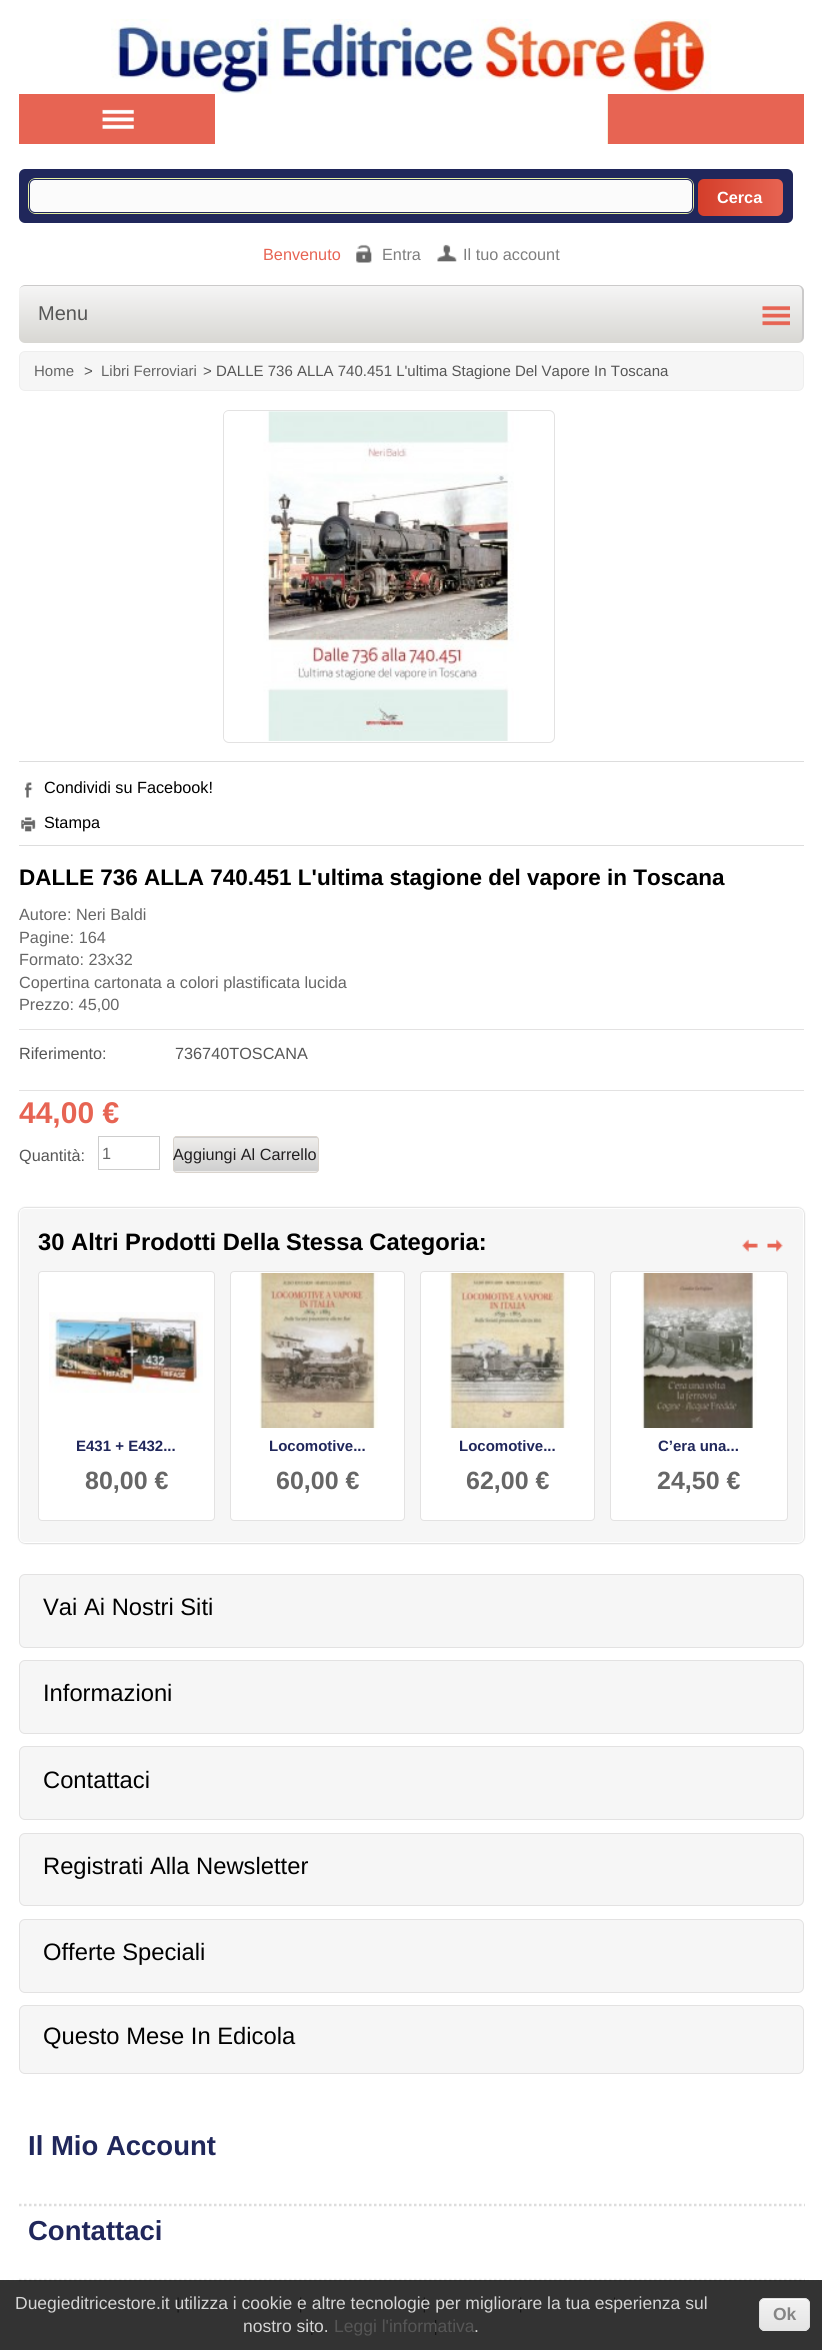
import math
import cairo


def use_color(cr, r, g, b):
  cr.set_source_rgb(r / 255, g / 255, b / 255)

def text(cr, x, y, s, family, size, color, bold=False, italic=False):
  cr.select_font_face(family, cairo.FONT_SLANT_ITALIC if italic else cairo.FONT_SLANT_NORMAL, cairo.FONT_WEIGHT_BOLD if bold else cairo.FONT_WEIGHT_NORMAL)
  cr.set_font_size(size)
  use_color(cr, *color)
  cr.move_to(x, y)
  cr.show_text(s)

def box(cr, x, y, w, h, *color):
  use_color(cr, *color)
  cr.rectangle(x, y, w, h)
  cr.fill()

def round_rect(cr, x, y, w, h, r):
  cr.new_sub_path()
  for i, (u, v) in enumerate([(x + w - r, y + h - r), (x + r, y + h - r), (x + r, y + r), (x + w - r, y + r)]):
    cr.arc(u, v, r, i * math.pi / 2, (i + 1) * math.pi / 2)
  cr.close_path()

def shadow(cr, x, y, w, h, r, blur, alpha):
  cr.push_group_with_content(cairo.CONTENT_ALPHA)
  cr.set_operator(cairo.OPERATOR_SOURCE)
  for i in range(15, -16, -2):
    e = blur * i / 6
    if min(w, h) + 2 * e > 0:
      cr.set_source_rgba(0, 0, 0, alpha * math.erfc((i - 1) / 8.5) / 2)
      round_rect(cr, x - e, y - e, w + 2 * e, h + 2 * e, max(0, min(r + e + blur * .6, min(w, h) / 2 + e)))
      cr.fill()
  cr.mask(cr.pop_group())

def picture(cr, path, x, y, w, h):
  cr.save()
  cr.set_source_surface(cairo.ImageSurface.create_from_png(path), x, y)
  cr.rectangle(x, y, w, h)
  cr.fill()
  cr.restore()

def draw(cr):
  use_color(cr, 255, 255, 255)
  cr.paint()
  picture(cr, "img_01.png", 111, 19, 601, 75)
  box(cr, 19, 94, 196, 50, 231, 100, 83)
  picture(cr, "img_02.png", 102, 109, 32, 20)
  use_color(cr, 32, 39, 91)
  round_rect(cr, 19, 169, 774, 54, 6)
  cr.fill()
  round_rect(cr, 28.5, 178.5, 665, 35, 7.5)
  use_color(cr, 231, 241, 161)
  cr.set_line_width(1)
  cr.stroke()
  use_color(cr, 251, 251, 251)
  round_rect(cr, 29.5, 179.5, 663, 33, 5.5)
  cr.fill_preserve()
  use_color(cr, 32, 39, 91)
  cr.stroke()
  gradient = cairo.LinearGradient(698, 198, 783, 198)
  gradient.add_color_stop_rgba(0, 0.831, 0.243, 0.165, 1)
  gradient.add_color_stop_rgba(1, 0.906, 0.392, 0.322, 1)
  cr.set_source(gradient)
  round_rect(cr, 698, 179, 85, 37, 6)
  cr.fill()
  box(cr, 607, 94, 1, 50, 246, 241, 219)
  box(cr, 608, 94, 196, 50, 231, 100, 83)
  picture(cr, "img_03.png", 356, 244, 16, 19)
  picture(cr, "img_04.png", 437, 244, 20, 18)
  cr.save()
  round_rect(cr, 19, 285, 785, 58, 6)
  cr.clip()
  gradient = cairo.LinearGradient(411, 286, 411, 343)
  gradient.add_color_stop_rgba(0, 0.961, 0.961, 0.961, 1)
  gradient.add_color_stop_rgba(1, 0.847, 0.843, 0.827, 1)
  cr.set_source(gradient)
  cr.new_path()
  cr.move_to(19, 286)
  cr.line_to(804, 286)
  cr.line_to(804, 337)
  cr.curve_to(804, 340.5, 801.5, 343, 798, 343)
  cr.line_to(25, 343)
  cr.curve_to(21.5, 343, 19, 340.5, 19, 337)
  cr.close_path()
  cr.fill()
  cr.restore()
  use_color(cr, 203, 202, 202)
  cr.set_fill_rule(cairo.FILL_RULE_EVEN_ODD)
  cr.new_path()
  cr.move_to(25, 285)
  cr.line_to(798, 285)
  cr.curve_to(801, 285, 804, 288, 804, 291)
  cr.line_to(804, 336)
  cr.curve_to(804, 340, 801, 342, 798, 342)
  cr.line_to(25, 342)
  cr.curve_to(22, 342, 19, 340, 19, 336)
  cr.line_to(19, 291)
  cr.curve_to(19, 288, 22, 285, 25, 285)
  cr.close_path()
  cr.move_to(25, 286)
  cr.line_to(798, 286)
  cr.curve_to(800, 286, 802, 288, 802, 291)
  cr.line_to(802, 336)
  cr.curve_to(802, 340, 800, 342, 798, 342)
  cr.line_to(25, 342)
  cr.curve_to(22, 342, 19, 340, 19, 336)
  cr.line_to(19, 291)
  cr.curve_to(19, 288, 22, 286, 25, 286)
  cr.close_path()
  cr.fill()
  picture(cr, "img_05.png", 762, 306, 28, 20)
  use_color(cr, 246, 246, 246)
  round_rect(cr, 19.5, 351.5, 784, 39, 5.5)
  cr.fill_preserve()
  use_color(cr, 238, 238, 238)
  cr.stroke()
  round_rect(cr, 223.5, 410.5, 331, 332, 5.5)
  use_color(cr, 227, 226, 226)
  cr.stroke()
  picture(cr, "img_06.png", 224, 411, 295, 330)
  box(cr, 19, 761, 785, 1, 221, 221, 221)
  box(cr, 19, 845, 785, 1, 221, 221, 221)
  picture(cr, "img_07.png", 24, 782, 9, 16)
  picture(cr, "img_08.png", 21, 817, 15, 15)
  box(cr, 19, 1029, 785, 1, 227, 226, 226)
  box(cr, 19, 1090, 785, 1, 227, 226, 226)
  cr.rectangle(98.5, 1136.5, 61, 33)
  use_color(cr, 205, 205, 205)
  cr.stroke()
  cr.save()
  cr.set_fill_rule(cairo.FILL_RULE_WINDING)
  round_rect(cr, 173, 1136, 146, 37, 4)
  cr.clip()
  gradient = cairo.LinearGradient(246, 1104, 246, 1138)
  gradient.add_color_stop_rgba(0, 0.933, 0.929, 0.922, 1)
  gradient.add_color_stop_rgba(1, 0.812, 0.812, 0.812, 1)
  cr.set_source(gradient)
  cr.rectangle(173, 1136, 146, 2)
  cr.fill()
  gradient = cairo.LinearGradient(246, 1138, 246, 1171)
  gradient.add_color_stop_rgba(0, 0.933, 0.929, 0.922, 1)
  gradient.add_color_stop_rgba(1, 0.812, 0.812, 0.812, 1)
  cr.set_source(gradient)
  cr.rectangle(173, 1138, 146, 33)
  cr.fill()
  gradient = cairo.LinearGradient(246, 1171, 246, 1205)
  gradient.add_color_stop_rgba(0, 0.933, 0.929, 0.922, 1)
  gradient.add_color_stop_rgba(1, 0.812, 0.812, 0.812, 1)
  cr.set_source(gradient)
  cr.rectangle(173, 1171, 146, 2)
  cr.fill()
  cr.restore()
  round_rect(cr, 173.5, 1136.5, 145, 36, 3.5)
  use_color(cr, 218, 212, 205)
  cr.stroke()
  use_color(cr, 0, 0, 0)
  shadow(cr, 19, 1208, 785, 335, 6, 1, 0.32)
  use_color(cr, 246, 246, 246)
  round_rect(cr, 19.5, 1208.5, 784, 334, 5.5)
  cr.fill_preserve()
  use_color(cr, 255, 255, 255)
  cr.stroke()
  picture(cr, "img_09.png", 742, 1239, 16, 13)
  picture(cr, "img_10.png", 767, 1239, 16, 13)
  round_rect(cr, 38.5, 1271.5, 176, 249, 3.5)
  cr.fill_preserve()
  use_color(cr, 227, 226, 226)
  cr.stroke()
  picture(cr, "img_11.png", 49, 1312, 154, 81)
  use_color(cr, 255, 255, 255)
  round_rect(cr, 230.5, 1271.5, 174, 249, 3.5)
  cr.fill_preserve()
  use_color(cr, 227, 226, 226)
  cr.stroke()
  picture(cr, "img_12.png", 259, 1273, 119, 155)
  use_color(cr, 255, 255, 255)
  round_rect(cr, 420.5, 1271.5, 174, 249, 3.5)
  cr.fill_preserve()
  use_color(cr, 227, 226, 226)
  cr.stroke()
  picture(cr, "img_13.png", 449, 1273, 121, 155)
  use_color(cr, 255, 255, 255)
  round_rect(cr, 610.5, 1271.5, 177, 249, 3.5)
  cr.fill_preserve()
  use_color(cr, 227, 226, 226)
  cr.stroke()
  picture(cr, "img_14.png", 641, 1273, 116, 155)
  use_color(cr, 246, 246, 246)
  round_rect(cr, 19.5, 1574.5, 784, 73, 5.5)
  cr.fill_preserve()
  use_color(cr, 227, 226, 226)
  cr.stroke()
  use_color(cr, 246, 246, 246)
  round_rect(cr, 19.5, 1660.5, 784, 73, 5.5)
  cr.fill_preserve()
  use_color(cr, 227, 226, 226)
  cr.stroke()
  use_color(cr, 246, 246, 246)
  round_rect(cr, 19.5, 1746.5, 784, 73, 5.5)
  cr.fill_preserve()
  use_color(cr, 227, 226, 226)
  cr.stroke()
  use_color(cr, 246, 246, 246)
  round_rect(cr, 19.5, 1833.5, 784, 72, 5.5)
  cr.fill_preserve()
  use_color(cr, 227, 226, 226)
  cr.stroke()
  use_color(cr, 246, 246, 246)
  round_rect(cr, 19.5, 1919.5, 784, 73, 5.5)
  cr.fill_preserve()
  use_color(cr, 227, 226, 226)
  cr.stroke()
  use_color(cr, 246, 246, 246)
  round_rect(cr, 19.5, 2005.5, 784, 68, 5.5)
  cr.fill_preserve()
  use_color(cr, 227, 226, 226)
  cr.stroke()
  cr.new_path()
  cr.move_to(19, 2205)
  cr.line_to(805, 2205)
  use_color(cr, 221, 221, 221)
  cr.set_line_width(2.5)
  cr.set_dash([2.5, 2.5])
  cr.stroke()
  cr.new_path()
  cr.move_to(19, 2280)
  cr.line_to(805, 2280)
  cr.stroke()
  picture(cr, "img_15.png", 177, 2297, 2, 16)
  picture(cr, "img_16.png", 300, 2297, 2, 16)
  picture(cr, "img_17.png", 423, 2297, 2, 16)
  picture(cr, "img_16.png", 520, 2297, 2, 16)
  picture(cr, "img_18.png", 614, 2297, 1, 16)
  picture(cr, "img_19.png", 311, 2320, 2, 15)
  picture(cr, "img_20.png", 435, 2320, 2, 15)
  cr.save()
  cr.set_fill_rule(cairo.FILL_RULE_WINDING)
  cr.rectangle(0, 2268, 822, 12)
  cr.clip()
  use_color(cr, 255, 255, 255)
  shadow(cr, 0, 2280, 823, 70, 0, 6, 0.8)
  cr.restore()
  cr.set_source_rgba(0, 0, 0, 0.8)
  cr.rectangle(0, 2280, 822, 70)
  cr.fill()
  cr.set_source_rgba(0.976, 0.976, 0.976, 0.8)
  round_rect(cr, 759, 2298, 51, 33, 6)
  cr.fill()
  cr.save()
  cr.set_fill_rule(cairo.FILL_RULE_WINDING)
  round_rect(cr, 759, 2298, 51, 33, 6)
  cr.clip()
  gradient = cairo.LinearGradient(760, 2268, 760, 2299)
  gradient.add_color_stop_rgba(0.05, 0.976, 0.976, 0.976, 0.8)
  gradient.add_color_stop_rgba(1, 0.914, 0.914, 0.914, 0.8)
  cr.set_source(gradient)
  cr.rectangle(759, 2298, 51, 1)
  cr.fill()
  gradient = cairo.LinearGradient(760, 2299, 760, 2330)
  gradient.add_color_stop_rgba(0.05, 0.976, 0.976, 0.976, 0.8)
  gradient.add_color_stop_rgba(1, 0.914, 0.914, 0.914, 0.8)
  cr.set_source(gradient)
  cr.rectangle(759, 2299, 51, 31)
  cr.fill()
  gradient = cairo.LinearGradient(760, 2330, 760, 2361)
  gradient.add_color_stop_rgba(0.05, 0.98, 0.98, 0.98, 1)
  gradient.add_color_stop_rgba(1, 0.929, 0.929, 0.929, 1)
  cr.set_source(gradient)
  cr.rectangle(759, 2330, 51, 1)
  cr.fill()
  cr.restore()
  use_color(cr, 252, 252, 252)
  cr.set_fill_rule(cairo.FILL_RULE_WINDING)
  cr.new_path()
  cr.move_to(765, 2300)
  cr.line_to(804, 2300)
  cr.curve_to(807, 2300, 809, 2302, 809, 2305)
  cr.curve_to(809, 2298, 803, 2299, 798, 2299)
  cr.line_to(772, 2299)
  cr.curve_to(766, 2299, 760, 2298, 760, 2305)
  cr.curve_to(760, 2302, 762, 2300, 765, 2300)
  cr.close_path()
  cr.fill()
  round_rect(cr, 759.5, 2298.5, 50, 32, 5.5)
  cr.set_source_rgba(0.863, 0.863, 0.863, 0.8)
  cr.set_line_width(1)
  cr.set_dash([])
  cr.stroke()
  text(cr, 717, 203, "Cerca", "Liberation Sans", 16.25, (255, 255, 255), bold=True)
  text(cr, 263, 260, "Benvenuto", "Liberation Sans", 16.25, (231, 100, 83))
  text(cr, 382, 260, "Entra", "Liberation Sans", 16.25, (126, 126, 126))
  text(cr, 463, 260, "Il tuo account", "Liberation Sans", 16.25, (126, 126, 126))
  text(cr, 38, 320, "Menu", "Liberation Sans", 20, (86, 86, 86))
  text(cr, 34, 376, "Home", "Liberation Sans", 15, (102, 102, 102))
  text(cr, 84, 376, ">", "Liberation Sans", 15, (86, 86, 86))
  text(cr, 101, 376, "Libri Ferroviari", "Liberation Sans", 15, (102, 102, 102))
  text(cr, 203, 376, ">", "Liberation Sans", 15, (86, 86, 86))
  text(cr, 216, 376, "DALLE 736 ALLA 740.451 L'ultima Stagione Del Vapore In Toscana", "Liberation Sans", 15, (86, 86, 86))
  text(cr, 44, 793, "Condividi su Facebook!", "Liberation Sans", 16.25, (0, 0, 0))
  text(cr, 44, 828, "Stampa", "Liberation Sans", 16.25, (0, 0, 0))
  text(cr, 19, 885, "DALLE 736 ALLA 740.451 L'ultima stagione del vapore in Toscana", "Liberation Sans", 22.5, (0, 0, 0), bold=True)
  text(cr, 19, 920, "Autore: Neri Baldi", "Liberation Sans", 16.25, (102, 102, 102))
  text(cr, 19, 943, "Pagine: 164", "Liberation Sans", 16.25, (102, 102, 102))
  text(cr, 19, 965, "Formato: 23x32", "Liberation Sans", 16.25, (102, 102, 102))
  text(cr, 19, 988, "Copertina cartonata a colori plastificata lucida", "Liberation Sans", 16.25, (102, 102, 102))
  text(cr, 19, 1010, "Prezzo: 45,00", "Liberation Sans", 16.25, (102, 102, 102))
  text(cr, 19, 1059, "Riferimento:", "Liberation Sans", 16.25, (86, 86, 86))
  text(cr, 175, 1059, "736740TOSCANA", "Liberation Sans", 16.25, (86, 86, 86))
  text(cr, 19, 1123, "44,00 €", "Liberation Sans", 30, (231, 100, 83), bold=True)
  text(cr, 19, 1161, "Quantità:", "Liberation Sans", 16.25, (86, 86, 86))
  text(cr, 102, 1159, "1", "Liberation Sans", 16.25, (102, 102, 102))
  text(cr, 173, 1160, "Aggiungi Al Carrello", "Liberation Sans", 16.25, (33, 31, 32))
  text(cr, 38, 1250, "30 Altri Prodotti Della Stessa Categoria:", "Liberation Sans", 23.75, (0, 0, 0), bold=True)
  text(cr, 76, 1451, "E431 + E432...", "Liberation Sans", 15, (32, 39, 91), bold=True)
  text(cr, 85, 1489, "80,00 €", "Liberation Sans", 25, (102, 102, 102), bold=True)
  text(cr, 269, 1451, "Locomotive...", "Liberation Sans", 15, (32, 39, 91), bold=True)
  text(cr, 276, 1489, "60,00 €", "Liberation Sans", 25, (102, 102, 102), bold=True)
  text(cr, 459, 1451, "Locomotive...", "Liberation Sans", 15, (32, 39, 91), bold=True)
  text(cr, 466, 1489, "62,00 €", "Liberation Sans", 25, (102, 102, 102), bold=True)
  text(cr, 658, 1451, "C’era una...", "Liberation Sans", 15, (32, 39, 91), bold=True)
  text(cr, 657, 1489, "24,50 €", "Liberation Sans", 25, (102, 102, 102), bold=True)
  text(cr, 43, 1615, "Vai Ai Nostri Siti", "Liberation Sans", 23.75, (0, 0, 0))
  text(cr, 43, 1701, "Informazioni", "Liberation Sans", 23.75, (0, 0, 0))
  text(cr, 43, 1788, "Contattaci", "Liberation Sans", 23.75, (0, 0, 0))
  text(cr, 43, 1874, "Registrati Alla Newsletter", "Liberation Sans", 23.75, (0, 0, 0))
  text(cr, 43, 1960, "Offerte Speciali", "Liberation Sans", 23.75, (0, 0, 0))
  text(cr, 43, 2044, "Questo Mese In Edicola", "Liberation Sans", 23.75, (0, 0, 0))
  text(cr, 28, 2155, "Il Mio Account", "Liberation Sans", 27.5, (32, 39, 91), bold=True)
  text(cr, 28, 2240, "Contattaci", "Liberation Sans", 27.5, (32, 39, 91), bold=True)
  text(cr, 15, 2309, "Duegieditricestore.it utilizza i cookie e altre tecnologie per migliorare la tua esperienza sul", "Liberation Sans", 17.5, (213, 213, 213))
  text(cr, 243, 2332, "nostro sito.", "Liberation Sans", 17.5, (213, 213, 213))
  text(cr, 334, 2332, "Leggi l'informativa", "Liberation Sans", 17.5, (86, 86, 86))
  text(cr, 474, 2332, ".", "Liberation Sans", 17.5, (213, 213, 213))
  text(cr, 773, 2320, "Ok", "Liberation Sans", 17.5, (133, 133, 133), bold=True)


surface = cairo.ImageSurface(cairo.FORMAT_RGB24, 822, 2350)
cr = cairo.Context(surface)
options = cairo.FontOptions()
options.set_hint_metrics(cairo.HINT_METRICS_OFF)
options.set_hint_style(cairo.HINT_STYLE_NONE)
cr.set_font_options(options)
cr.set_miter_limit(4)
draw(cr)
surface.write_to_png("out.png")
